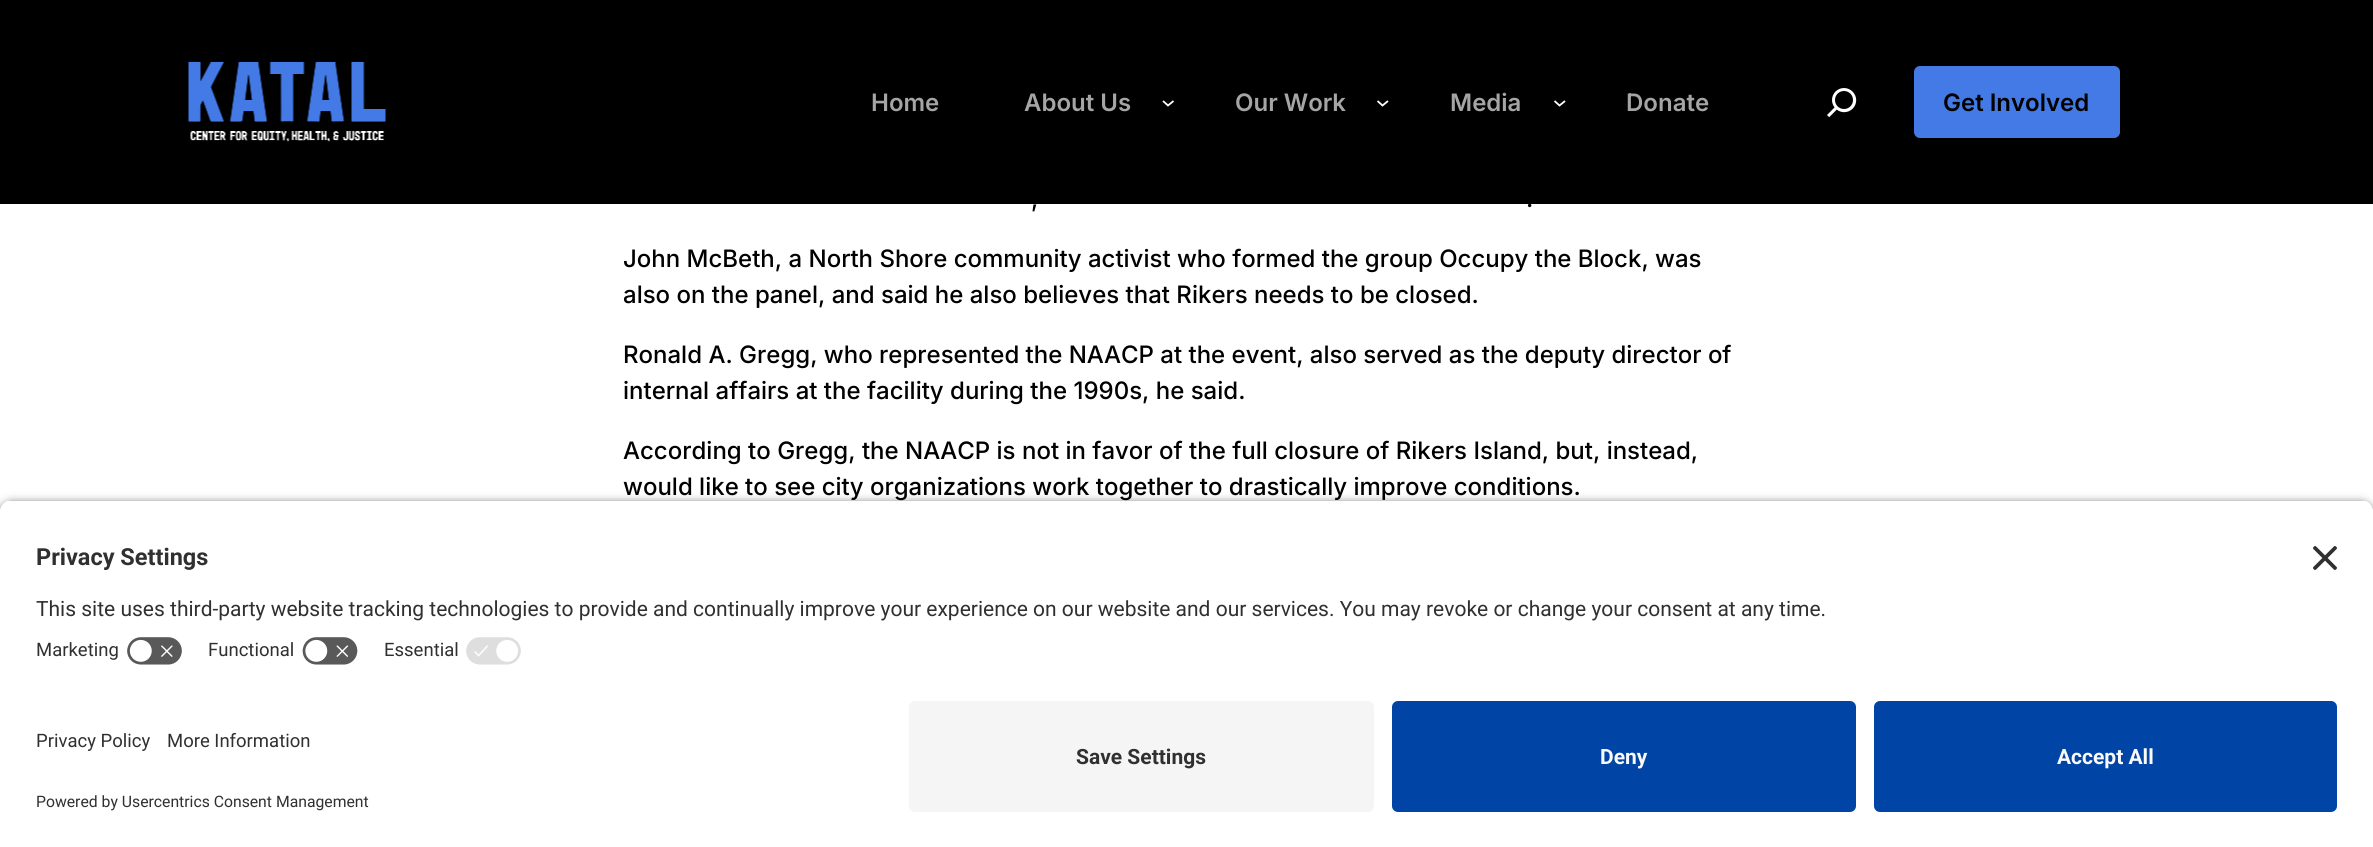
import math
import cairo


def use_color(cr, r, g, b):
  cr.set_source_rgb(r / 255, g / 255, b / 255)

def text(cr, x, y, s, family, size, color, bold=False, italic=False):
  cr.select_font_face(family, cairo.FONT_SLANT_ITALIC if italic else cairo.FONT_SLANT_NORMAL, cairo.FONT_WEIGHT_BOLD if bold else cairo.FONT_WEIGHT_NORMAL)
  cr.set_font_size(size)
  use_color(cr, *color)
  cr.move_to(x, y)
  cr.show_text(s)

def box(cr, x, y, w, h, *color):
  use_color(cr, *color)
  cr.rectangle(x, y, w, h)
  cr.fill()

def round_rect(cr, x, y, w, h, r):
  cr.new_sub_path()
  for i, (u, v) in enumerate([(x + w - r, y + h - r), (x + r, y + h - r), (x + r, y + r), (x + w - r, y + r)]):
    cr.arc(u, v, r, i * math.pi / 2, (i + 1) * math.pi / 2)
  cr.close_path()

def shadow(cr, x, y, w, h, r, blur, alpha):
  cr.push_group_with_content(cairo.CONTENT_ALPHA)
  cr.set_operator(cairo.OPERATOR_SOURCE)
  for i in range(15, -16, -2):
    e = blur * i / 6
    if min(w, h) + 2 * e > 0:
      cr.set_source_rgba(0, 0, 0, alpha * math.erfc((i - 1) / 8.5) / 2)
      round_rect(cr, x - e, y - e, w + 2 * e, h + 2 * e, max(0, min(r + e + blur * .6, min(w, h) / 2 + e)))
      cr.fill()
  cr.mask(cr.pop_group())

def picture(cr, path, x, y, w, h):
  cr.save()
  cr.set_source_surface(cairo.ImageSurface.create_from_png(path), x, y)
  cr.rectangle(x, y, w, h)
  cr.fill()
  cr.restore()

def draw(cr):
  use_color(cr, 255, 255, 255)
  cr.paint()
  box(cr, 0, 0, 2373, 204, 0, 0, 0)
  picture(cr, "img_01.png", 188, 61, 198, 81)
  cr.new_path()
  cr.move_to(1163, 101)
  cr.line_to(1168, 105.5)
  cr.line_to(1173.5, 101)
  use_color(cr, 255, 255, 255)
  cr.set_line_width(1.8)
  cr.stroke()
  cr.new_path()
  cr.move_to(1377.5, 101)
  cr.line_to(1382.5, 105.5)
  cr.line_to(1388, 101)
  cr.stroke()
  cr.new_path()
  cr.move_to(1554.5, 101)
  cr.line_to(1559.5, 105.5)
  cr.line_to(1565, 101)
  cr.stroke()
  picture(cr, "img_02.png", 1827, 88, 30, 30)
  use_color(cr, 67, 122, 230)
  round_rect(cr, 1914, 66, 206, 72, 6)
  cr.fill()
  use_color(cr, 0, 0, 0)
  shadow(cr, 0, 504, 2373, 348, 12, 5, 0.8)
  cr.save()
  cr.new_path()
  cr.move_to(12, 500)
  cr.line_to(2361, 500)
  cr.curve_to(2367.5, 500, 2373, 505.5, 2373, 512)
  cr.line_to(2373, 689)
  cr.line_to(0, 689)
  cr.line_to(0, 512)
  cr.curve_to(0, 505.5, 5.5, 500, 12, 500)
  cr.close_path()
  cr.clip()
  box(cr, 0, 501, 2373, 188, 255, 255, 255)
  box(cr, 0, 501, 2373, 128, 255, 255, 255)
  cr.restore()
  picture(cr, "img_03.png", 2313, 546, 24, 24)
  picture(cr, "img_04.png", 127, 637, 55, 28)
  picture(cr, "img_05.png", 302, 637, 56, 28)
  picture(cr, "img_06.png", 466, 637, 55, 28)
  box(cr, 0, 689, 2373, 158, 255, 255, 255)
  use_color(cr, 245, 245, 245)
  round_rect(cr, 909, 701, 465, 111, 6)
  cr.fill()
  use_color(cr, 0, 69, 165)
  round_rect(cr, 1392, 701, 464, 111, 6)
  cr.fill()
  round_rect(cr, 1874, 701, 463, 111, 6)
  cr.fill()
  text(cr, 871, 111, "Home", "Inter SemiBold", 24, (165, 165, 165))
  text(cr, 1024, 111, "About Us", "Inter SemiBold", 24, (165, 165, 165))
  text(cr, 1235, 111, "Our Work", "Inter SemiBold", 24, (165, 165, 165))
  text(cr, 1450, 111, "Media", "Inter SemiBold", 24, (165, 165, 165))
  text(cr, 1626, 111, "Donate", "Inter SemiBold", 24, (165, 165, 165))
  text(cr, 1943, 111, "Get Involved", "Inter SemiBold", 24, (0, 0, 0))
  text(cr, 1031, 207, ",", "Inter Medium", 24, (0, 0, 0))
  text(cr, 1526, 207, ".", "Inter Medium", 24, (0, 0, 0))
  text(cr, 623, 267, "John McBeth, a North Shore community activist who formed the group Occupy the Block, was", "Inter Medium", 24, (0, 0, 0))
  text(cr, 623, 303, "also on the panel, and said he also believes that Rikers needs to be closed.", "Inter Medium", 24, (0, 0, 0))
  text(cr, 623, 363, "Ronald A. Gregg, who represented the NAACP at the event, also served as the deputy director of", "Inter Medium", 24, (0, 0, 0))
  text(cr, 623, 399, "internal affairs at the facility during the 1990s, he said.", "Inter Medium", 24, (0, 0, 0))
  text(cr, 623, 459, "According to Gregg, the NAACP is not in favor of the full closure of Rikers Island, but, instead,", "Inter Medium", 24, (0, 0, 0))
  text(cr, 623, 495, "would like to see city organizations work together to drastically improve conditions.", "Inter Medium", 24, (0, 0, 0))
  text(cr, 36, 565, "Privacy Settings", "Roboto", 23.5, (48, 48, 48), bold=True)
  text(cr, 36, 616, "This site uses third-party website tracking technologies to provide and continually improve your experience on our website and our services. You may revoke or change your consent at any time.", "Roboto", 21, (48, 48, 48))
  text(cr, 36, 656, "Marketing", "Roboto", 18.5, (48, 48, 48))
  text(cr, 208, 656, "Functional", "Roboto", 18.5, (48, 48, 48))
  text(cr, 384, 656, "Essential", "Roboto", 18.5, (48, 48, 48))
  text(cr, 36, 747, "Privacy Policy", "Roboto", 18.5, (48, 48, 48))
  text(cr, 167, 747, "More Information", "Roboto", 18.5, (48, 48, 48))
  text(cr, 36, 807, "Powered by Usercentrics Consent Management", "Roboto", 15.75, (48, 48, 48))
  text(cr, 1076, 764, "Save Settings", "Roboto", 21, (48, 48, 48), bold=True)
  text(cr, 1600, 764, "Deny", "Roboto", 21, (250, 250, 250), bold=True)
  text(cr, 2057, 764, "Accept All", "Roboto", 21, (250, 250, 250), bold=True)


surface = cairo.ImageSurface(cairo.FORMAT_RGB24, 2373, 847)
cr = cairo.Context(surface)
options = cairo.FontOptions()
options.set_hint_metrics(cairo.HINT_METRICS_OFF)
options.set_hint_style(cairo.HINT_STYLE_NONE)
cr.set_font_options(options)
cr.set_miter_limit(4)
draw(cr)
surface.write_to_png("out.png")
